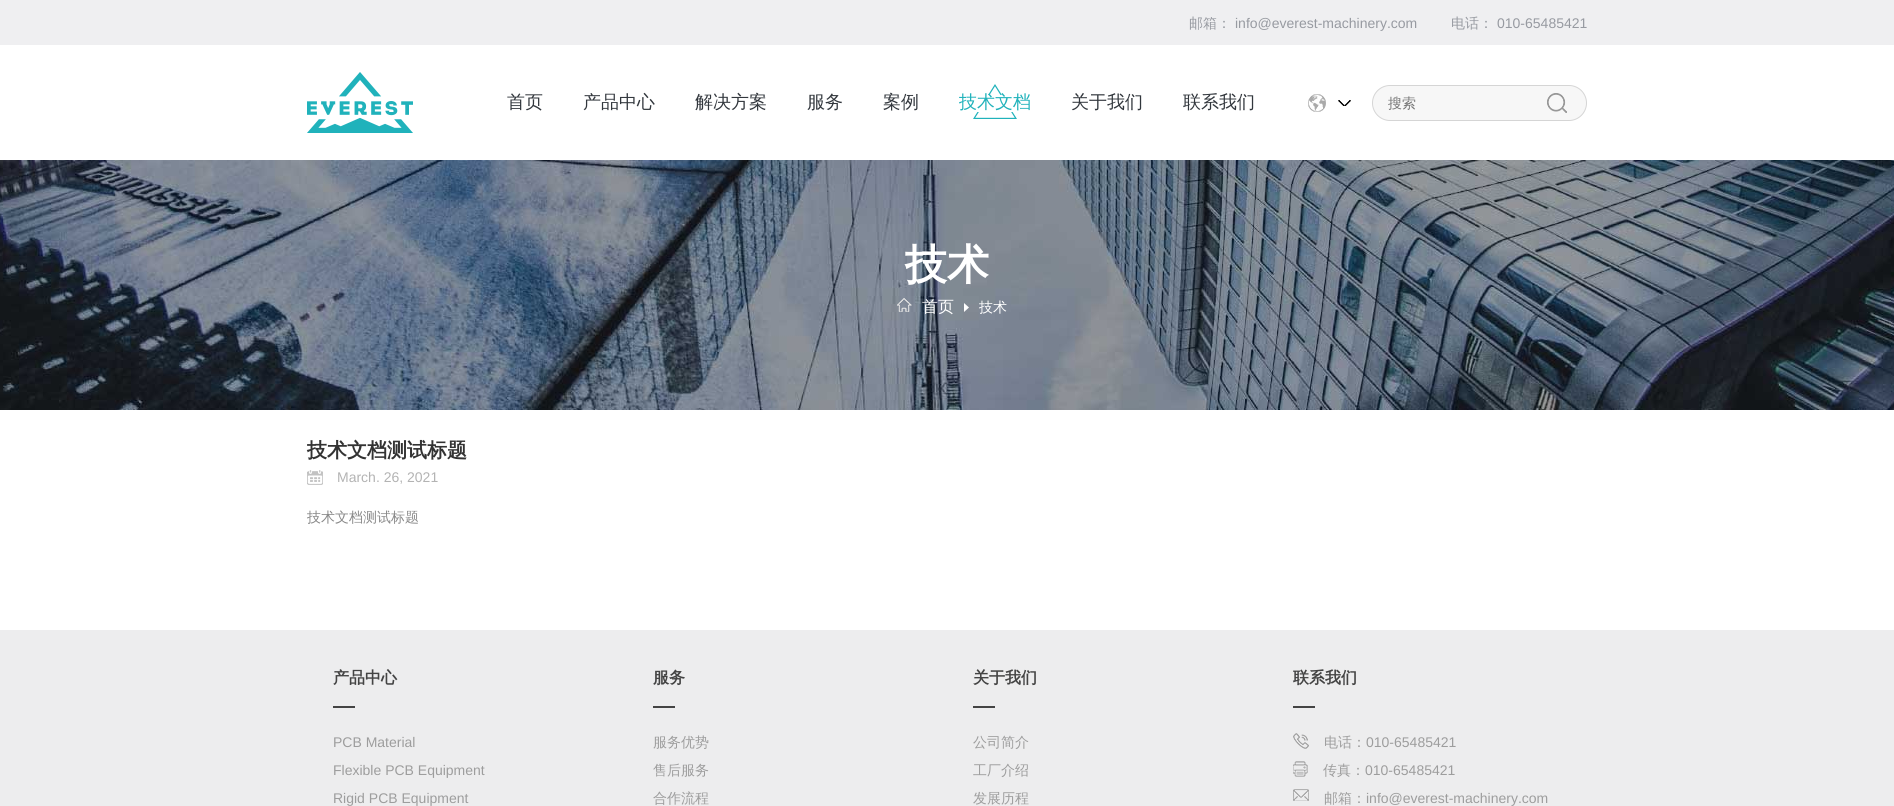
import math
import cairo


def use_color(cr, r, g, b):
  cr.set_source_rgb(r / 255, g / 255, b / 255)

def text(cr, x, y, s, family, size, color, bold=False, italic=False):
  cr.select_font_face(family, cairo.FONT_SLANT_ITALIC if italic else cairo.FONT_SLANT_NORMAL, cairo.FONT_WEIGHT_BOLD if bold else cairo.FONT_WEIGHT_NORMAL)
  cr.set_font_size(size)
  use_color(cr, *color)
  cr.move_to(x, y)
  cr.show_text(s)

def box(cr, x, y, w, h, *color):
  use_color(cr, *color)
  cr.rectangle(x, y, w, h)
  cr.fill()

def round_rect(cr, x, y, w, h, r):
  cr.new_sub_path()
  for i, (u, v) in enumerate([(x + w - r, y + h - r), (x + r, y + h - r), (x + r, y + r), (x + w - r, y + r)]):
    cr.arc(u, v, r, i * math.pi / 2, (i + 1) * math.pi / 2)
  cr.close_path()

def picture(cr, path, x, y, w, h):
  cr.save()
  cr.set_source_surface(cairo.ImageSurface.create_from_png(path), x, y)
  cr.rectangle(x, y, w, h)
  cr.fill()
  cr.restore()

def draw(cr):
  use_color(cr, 255, 255, 255)
  cr.paint()
  box(cr, 0, 0, 1894, 45, 239, 239, 241)
  picture(cr, "img_01.png", 307, 72, 106, 61)
  picture(cr, "img_03.png", 1308, 94, 18, 18)
  picture(cr, "img_04.png", 1338, 100, 13, 6)
  use_color(cr, 247, 247, 247)
  round_rect(cr, 1372.5, 85.5, 214, 35, 17.5)
  cr.fill_preserve()
  use_color(cr, 213, 213, 213)
  cr.set_line_width(1)
  cr.stroke()
  picture(cr, "img_05.png", 1547, 93, 20, 20)
  picture(cr, "img_06.png", 0, 160, 1894, 250)
  picture(cr, "img_07.png", 897, 298, 15, 14)
  picture(cr, "img_08.png", 964, 303, 5, 9)
  picture(cr, "img_09.png", 307, 470, 16, 15)
  box(cr, 0, 630, 1894, 176, 237, 237, 238)
  box(cr, 333, 706, 22, 2, 68, 68, 68)
  box(cr, 653, 706, 22, 2, 68, 68, 68)
  box(cr, 973, 706, 22, 2, 68, 68, 68)
  box(cr, 1293, 706, 22, 2, 68, 68, 68)
  picture(cr, "img_10.png", 1293, 733, 16, 16)
  picture(cr, "img_11.png", 1293, 761, 15, 16)
  picture(cr, "img_12.png", 1293, 789, 16, 12)
  text(cr, 1189, 28, "邮箱：", "WenQuanYi Zen Hei Medium", 14, (151, 154, 161))
  text(cr, 1235, 28, "info@everest-machinery.com", "Liberation Sans", 14, (151, 154, 161))
  text(cr, 1451, 28, "电话：", "WenQuanYi Zen Hei Medium", 14, (151, 154, 161))
  text(cr, 1497, 28, "010-65485421", "Liberation Sans", 14, (151, 154, 161))
  text(cr, 507, 108, "首页", "WenQuanYi Zen Hei Medium", 18, (50, 55, 61))
  text(cr, 583, 108, "产品中心", "WenQuanYi Zen Hei Medium", 18, (50, 55, 61))
  text(cr, 695, 108, "解决方案", "WenQuanYi Zen Hei Medium", 18, (50, 55, 61))
  text(cr, 807, 108, "服务", "WenQuanYi Zen Hei Medium", 18, (50, 55, 61))
  text(cr, 883, 108, "案例", "WenQuanYi Zen Hei Medium", 18, (50, 55, 61))
  text(cr, 959, 108, "技术文档", "WenQuanYi Zen Hei Medium", 18, (32, 178, 187))
  picture(cr, "img_02.png", 973, 84, 44, 35)
  text(cr, 1071, 108, "关于我们", "WenQuanYi Zen Hei Medium", 18, (50, 55, 61))
  text(cr, 1183, 108, "联系我们", "WenQuanYi Zen Hei Medium", 18, (50, 55, 61))
  text(cr, 1388, 108, "搜索", "WenQuanYi Zen Hei Medium", 14, (117, 117, 117))
  text(cr, 905, 279, "技术", "WenQuanYi Zen Hei", 42, (255, 255, 255), bold=True)
  text(cr, 922, 312, "首页", "WenQuanYi Zen Hei Medium", 16, (255, 255, 255))
  text(cr, 979, 312, "技术", "WenQuanYi Zen Hei Medium", 14, (255, 255, 255))
  text(cr, 307, 457, "技术文档测试标题", "WenQuanYi Zen Hei", 20, (51, 51, 51), bold=True)
  text(cr, 337, 482, "March. 26, 2021", "Liberation Sans", 14, (179, 179, 179))
  text(cr, 307, 522, "技术文档测试标题", "WenQuanYi Zen Hei Medium", 14, (136, 136, 136))
  text(cr, 333, 683, "产品中心", "WenQuanYi Zen Hei", 16, (68, 68, 68), bold=True)
  text(cr, 333, 747, "PCB Material", "Liberation Sans", 14, (157, 157, 157))
  text(cr, 333, 775, "Flexible PCB Equipment", "Liberation Sans", 14, (157, 157, 157))
  text(cr, 333, 803, "Rigid PCB Equipment", "Liberation Sans", 14, (157, 157, 157))
  text(cr, 653, 683, "服务", "WenQuanYi Zen Hei", 16, (68, 68, 68), bold=True)
  text(cr, 653, 747, "服务优势", "WenQuanYi Zen Hei Medium", 14, (157, 157, 157))
  text(cr, 653, 775, "售后服务", "WenQuanYi Zen Hei Medium", 14, (157, 157, 157))
  text(cr, 653, 803, "合作流程", "WenQuanYi Zen Hei Medium", 14, (157, 157, 157))
  text(cr, 973, 683, "关于我们", "WenQuanYi Zen Hei", 16, (68, 68, 68), bold=True)
  text(cr, 973, 747, "公司简介", "WenQuanYi Zen Hei Medium", 14, (157, 157, 157))
  text(cr, 973, 775, "工厂介绍", "WenQuanYi Zen Hei Medium", 14, (157, 157, 157))
  text(cr, 973, 803, "发展历程", "WenQuanYi Zen Hei Medium", 14, (157, 157, 157))
  text(cr, 1293, 683, "联系我们", "WenQuanYi Zen Hei", 16, (68, 68, 68), bold=True)
  text(cr, 1324, 747, "电话：", "WenQuanYi Zen Hei Medium", 14, (157, 157, 157))
  text(cr, 1366, 747, "010-65485421", "Liberation Sans", 14, (157, 157, 157))
  text(cr, 1323, 775, "传真：", "WenQuanYi Zen Hei Medium", 14, (157, 157, 157))
  text(cr, 1365, 775, "010-65485421", "Liberation Sans", 14, (157, 157, 157))
  text(cr, 1324, 803, "邮箱：", "WenQuanYi Zen Hei Medium", 14, (157, 157, 157))
  text(cr, 1366, 803, "info@everest-machinery.com", "Liberation Sans", 14, (157, 157, 157))


surface = cairo.ImageSurface(cairo.FORMAT_RGB24, 1894, 806)
cr = cairo.Context(surface)
options = cairo.FontOptions()
options.set_hint_metrics(cairo.HINT_METRICS_OFF)
options.set_hint_style(cairo.HINT_STYLE_NONE)
cr.set_font_options(options)
cr.set_miter_limit(4)
draw(cr)
surface.write_to_png("out.png")
